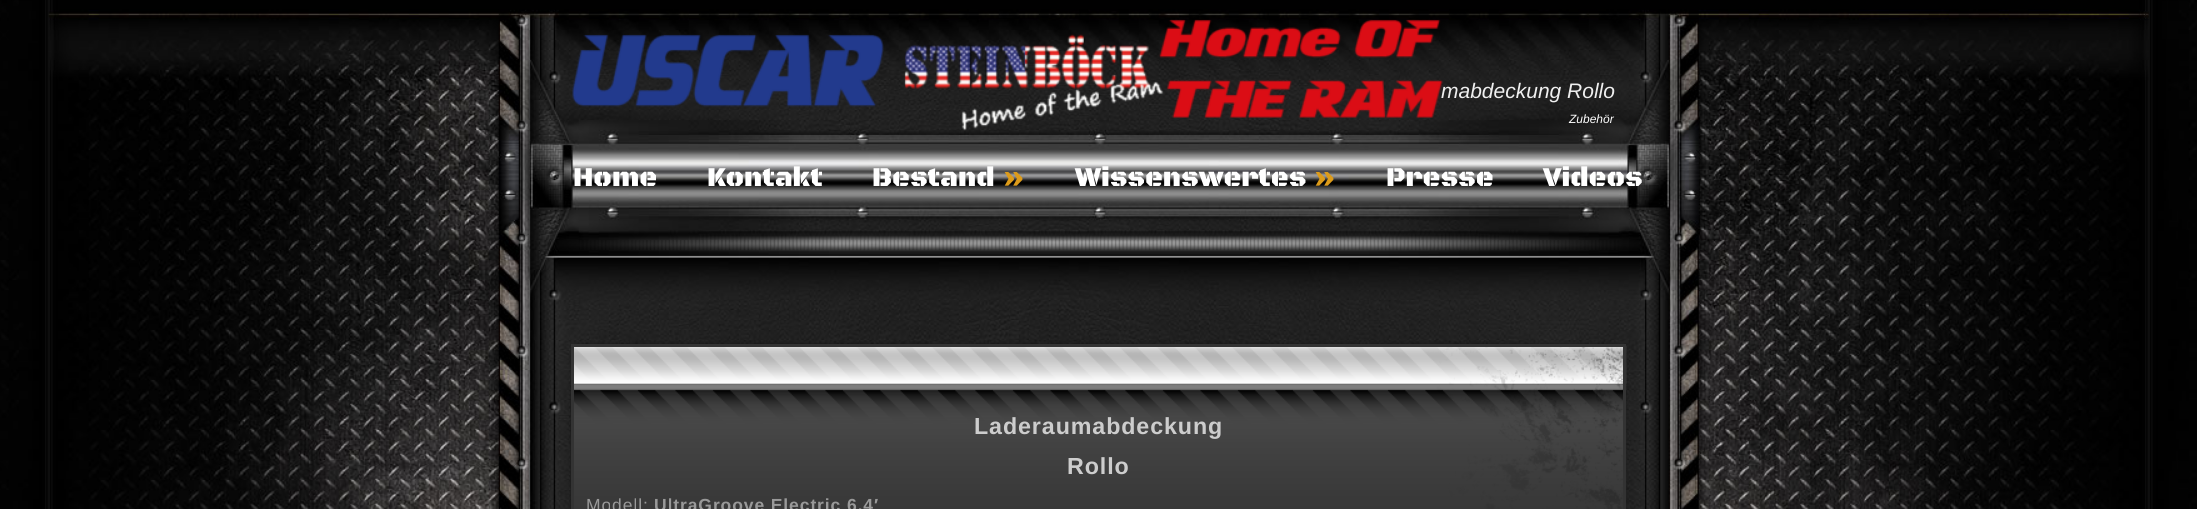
import math
import cairo


def use_color(cr, r, g, b):
  cr.set_source_rgb(r / 255, g / 255, b / 255)

def text(cr, x, y, s, family, size, color, bold=False, italic=False):
  cr.select_font_face(family, cairo.FONT_SLANT_ITALIC if italic else cairo.FONT_SLANT_NORMAL, cairo.FONT_WEIGHT_BOLD if bold else cairo.FONT_WEIGHT_NORMAL)
  cr.set_font_size(size)
  use_color(cr, *color)
  cr.move_to(x, y)
  cr.show_text(s)

def spaced_text(cr, x, y, s, letter, word):
  cr.move_to(x, y)
  for ch in s:
    cr.show_text(ch)
    cr.rel_move_to(letter + word * (ch == ' '), 0)

def round_rect(cr, x, y, w, h, r):
  cr.new_sub_path()
  for i, (u, v) in enumerate([(x + w - r, y + h - r), (x + r, y + h - r), (x + r, y + r), (x + w - r, y + r)]):
    cr.arc(u, v, r, i * math.pi / 2, (i + 1) * math.pi / 2)
  cr.close_path()

def shadow(cr, x, y, w, h, r, blur, alpha):
  cr.push_group_with_content(cairo.CONTENT_ALPHA)
  cr.set_operator(cairo.OPERATOR_SOURCE)
  for i in range(15, -16, -2):
    e = blur * i / 6
    if min(w, h) + 2 * e > 0:
      cr.set_source_rgba(0, 0, 0, alpha * math.erfc((i - 1) / 8.5) / 2)
      round_rect(cr, x - e, y - e, w + 2 * e, h + 2 * e, max(0, min(r + e + blur * .6, min(w, h) / 2 + e)))
      cr.fill()
  cr.mask(cr.pop_group())

def picture(cr, path, x, y, w, h):
  cr.save()
  cr.set_source_surface(cairo.ImageSurface.create_from_png(path), x, y)
  cr.rectangle(x, y, w, h)
  cr.fill()
  cr.restore()

def draw(cr):
  use_color(cr, 255, 255, 255)
  cr.paint()
  picture(cr, "img_01.png", 0, 0, 2197, 509)
  picture(cr, "img_02.png", 48, 0, 2101, 509)
  use_color(cr, 0, 0, 0)
  shadow(cr, 571, 344, 1055, 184, 13, 2, 0.3)
  picture(cr, "img_04.png", 574, 344, 1053, 165)
  cr.rectangle(572.5, 345.5, 1052, 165)
  use_color(cr, 51, 51, 51)
  cr.set_line_width(3)
  cr.stroke()
  text(cr, 1441, 98, "mabdeckung Rollo", "Liberation Sans", 21, (239, 239, 239), italic=True)
  picture(cr, "img_03.png", 572, 19, 871, 112)
  text(cr, 1569, 123, "Zubehör", "Liberation Sans", 12, (255, 255, 255), italic=True)
  text(cr, 573, 186, "Home", "Black Ops One Black", 27.5, (255, 255, 255))
  text(cr, 707, 186, "Kontakt", "Black Ops One Black", 27.5, (255, 255, 255))
  text(cr, 872, 186, "Bestand", "Black Ops One Black", 27.5, (255, 255, 255))
  text(cr, 1002, 186, "»", "Black Ops One Black", 27.5, (220, 155, 26))
  text(cr, 1075, 186, "Wissenswertes", "Black Ops One Black", 27.5, (255, 255, 255))
  text(cr, 1313, 186, "»", "Black Ops One Black", 27.5, (220, 155, 26))
  text(cr, 1386, 186, "Presse", "Black Ops One Black", 27.5, (255, 255, 255))
  text(cr, 1543, 186, "Videos", "Black Ops One Black", 27.5, (255, 255, 255))
  cr.select_font_face("Liberation Sans", cairo.FONT_SLANT_NORMAL, cairo.FONT_WEIGHT_BOLD)
  cr.set_font_size(23.25)
  use_color(cr, 205, 205, 205)
  spaced_text(cr, 974, 434, "Laderaumabdeckung", 0.9, 0)
  spaced_text(cr, 1067, 474, "Rollo", 0.9, 0)
  cr.select_font_face("Liberation Sans")
  cr.set_font_size(17.5)
  use_color(cr, 153, 153, 153)
  spaced_text(cr, 586, 511, "Modell:", 0.9, 0)
  cr.select_font_face("Liberation Sans", cairo.FONT_SLANT_NORMAL, cairo.FONT_WEIGHT_BOLD)
  spaced_text(cr, 654, 511, "UltraGroove Electric 6,4′", 0.9, 0)


surface = cairo.ImageSurface(cairo.FORMAT_RGB24, 2197, 509)
cr = cairo.Context(surface)
options = cairo.FontOptions()
options.set_hint_metrics(cairo.HINT_METRICS_OFF)
options.set_hint_style(cairo.HINT_STYLE_NONE)
cr.set_font_options(options)
cr.set_miter_limit(4)
draw(cr)
surface.write_to_png("out.png")
